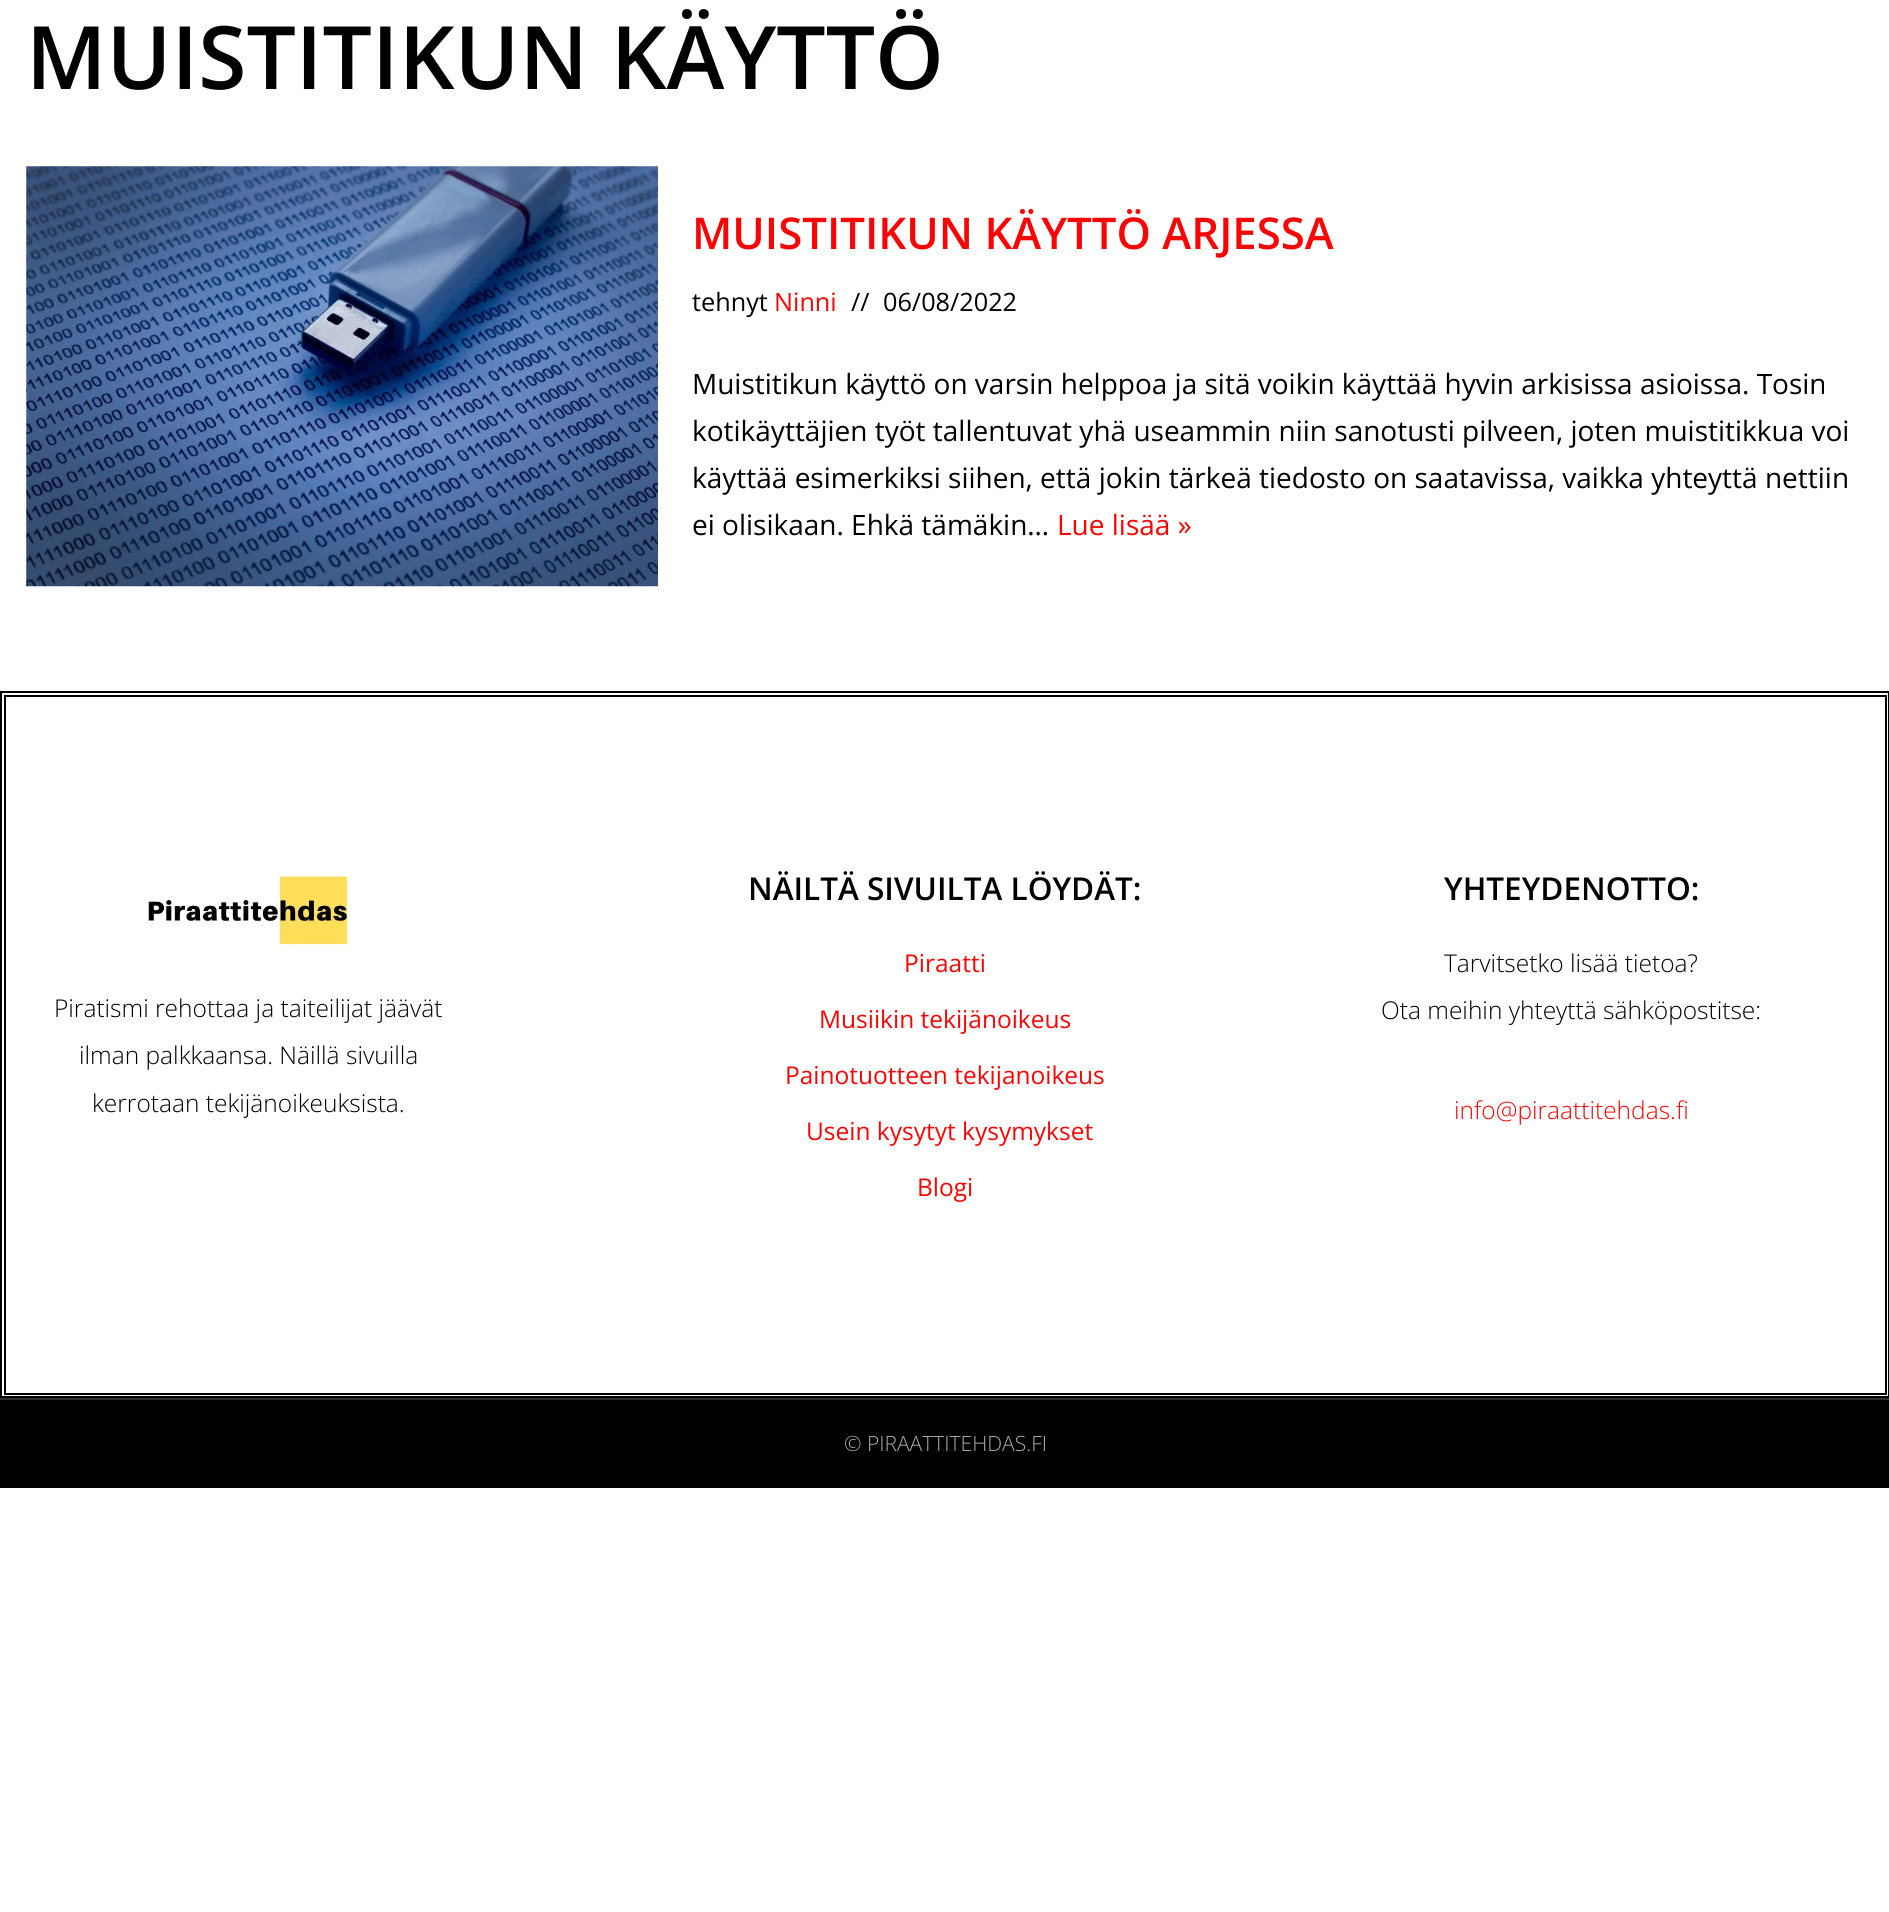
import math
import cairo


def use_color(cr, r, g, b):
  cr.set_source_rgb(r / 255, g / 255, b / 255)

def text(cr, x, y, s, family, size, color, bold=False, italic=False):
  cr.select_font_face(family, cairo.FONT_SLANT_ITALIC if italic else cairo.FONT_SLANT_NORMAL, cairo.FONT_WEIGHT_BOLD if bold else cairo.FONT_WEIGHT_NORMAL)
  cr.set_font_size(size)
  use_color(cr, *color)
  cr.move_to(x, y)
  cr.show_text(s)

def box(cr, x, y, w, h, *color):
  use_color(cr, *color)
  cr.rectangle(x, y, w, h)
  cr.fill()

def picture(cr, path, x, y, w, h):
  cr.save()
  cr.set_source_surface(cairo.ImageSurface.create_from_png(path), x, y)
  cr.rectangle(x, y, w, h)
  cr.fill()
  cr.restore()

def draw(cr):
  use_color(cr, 255, 255, 255)
  cr.paint()
  picture(cr, "img_01.png", 26, 166, 632, 421)
  cr.rectangle(1, 692, 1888, 705)
  use_color(cr, 0, 0, 0)
  cr.stroke()
  cr.rectangle(5, 696, 1881, 698)
  cr.stroke()
  picture(cr, "img_02.png", 148, 876, 204, 72)
  box(cr, 0, 1400, 1889, 88, 0, 0, 0)
  box(cr, 0, 1398, 1889, 2, 48, 48, 48)
  text(cr, 26, 89, "MUISTITIKUN KÄYTTÖ", "Open Sans SemiBold", 87.5, (0, 0, 0))
  text(cr, 692, 249, "MUISTITIKUN KÄYTTÖ ARJESSA", "Open Sans SemiBold", 43.75, (248, 5, 5))
  text(cr, 692, 311, "tehnyt", "Open Sans", 25.25, (0, 0, 0))
  text(cr, 774, 311, "Ninni", "Open Sans", 25.25, (248, 5, 5))
  text(cr, 851, 311, "//", "Open Sans", 25.25, (0, 0, 0))
  text(cr, 883, 311, "06/08/2022", "Open Sans", 25.25, (0, 0, 0))
  text(cr, 692, 394, "Muistitikun käyttö on varsin helppoa ja sitä voikin käyttää hyvin arkisissa asioissa. Tosin", "Open Sans", 28, (0, 0, 0))
  text(cr, 692, 441, "kotikäyttäjien työt tallentuvat yhä useammin niin sanotusti pilveen, joten muistitikkua voi", "Open Sans", 28, (0, 0, 0))
  text(cr, 692, 488, "käyttää esimerkiksi siihen, että jokin tärkeä tiedosto on saatavissa, vaikka yhteyttä nettiin", "Open Sans", 28, (0, 0, 0))
  text(cr, 692, 535, "ei olisikaan. Ehkä tämäkin…", "Open Sans", 28, (0, 0, 0))
  text(cr, 1057, 535, "Lue lisää »", "Open Sans", 28, (248, 5, 5))
  text(cr, 54, 1017, "Piratismi rehottaa ja taiteilijat jäävät", "Open Sans Light", 24.5, (0, 0, 0))
  text(cr, 79, 1064, "ilman palkkaansa. Näillä sivuilla", "Open Sans Light", 24.5, (0, 0, 0))
  text(cr, 92, 1112, "kerrotaan tekijänoikeuksista.", "Open Sans Light", 24.5, (0, 0, 0))
  text(cr, 748, 900, "NÄILTÄ SIVUILTA LÖYDÄT:", "Open Sans SemiBold", 31.5, (0, 0, 0))
  text(cr, 904, 972, "Piraatti", "Open Sans", 24.5, (248, 5, 5))
  text(cr, 819, 1028, "Musiikin tekijänoikeus", "Open Sans", 24.5, (248, 5, 5))
  text(cr, 785, 1084, "Painotuotteen tekijanoikeus", "Open Sans", 24.5, (248, 5, 5))
  text(cr, 806, 1140, "Usein kysytyt kysymykset", "Open Sans", 24.5, (248, 5, 5))
  text(cr, 917, 1196, "Blogi", "Open Sans", 24.5, (248, 5, 5))
  text(cr, 1444, 900, "YHTEYDENOTTO:", "Open Sans SemiBold", 31.5, (0, 0, 0))
  text(cr, 1444, 972, "Tarvitsetko lisää tietoa?", "Open Sans Light", 24.5, (0, 0, 0))
  text(cr, 1381, 1019, "Ota meihin yhteyttä sähköpostitse:", "Open Sans Light", 24.5, (0, 0, 0))
  text(cr, 1454, 1119, "info@piraattitehdas.fi", "Open Sans Light", 24.5, (248, 5, 5))
  text(cr, 844, 1451, "© PIRAATTITEHDAS.FI", "Open Sans Light", 21, (173, 173, 173))


surface = cairo.ImageSurface(cairo.FORMAT_RGB24, 1889, 1912)
cr = cairo.Context(surface)
options = cairo.FontOptions()
options.set_hint_metrics(cairo.HINT_METRICS_OFF)
options.set_hint_style(cairo.HINT_STYLE_NONE)
cr.set_font_options(options)
cr.set_miter_limit(4)
draw(cr)
surface.write_to_png("out.png")
